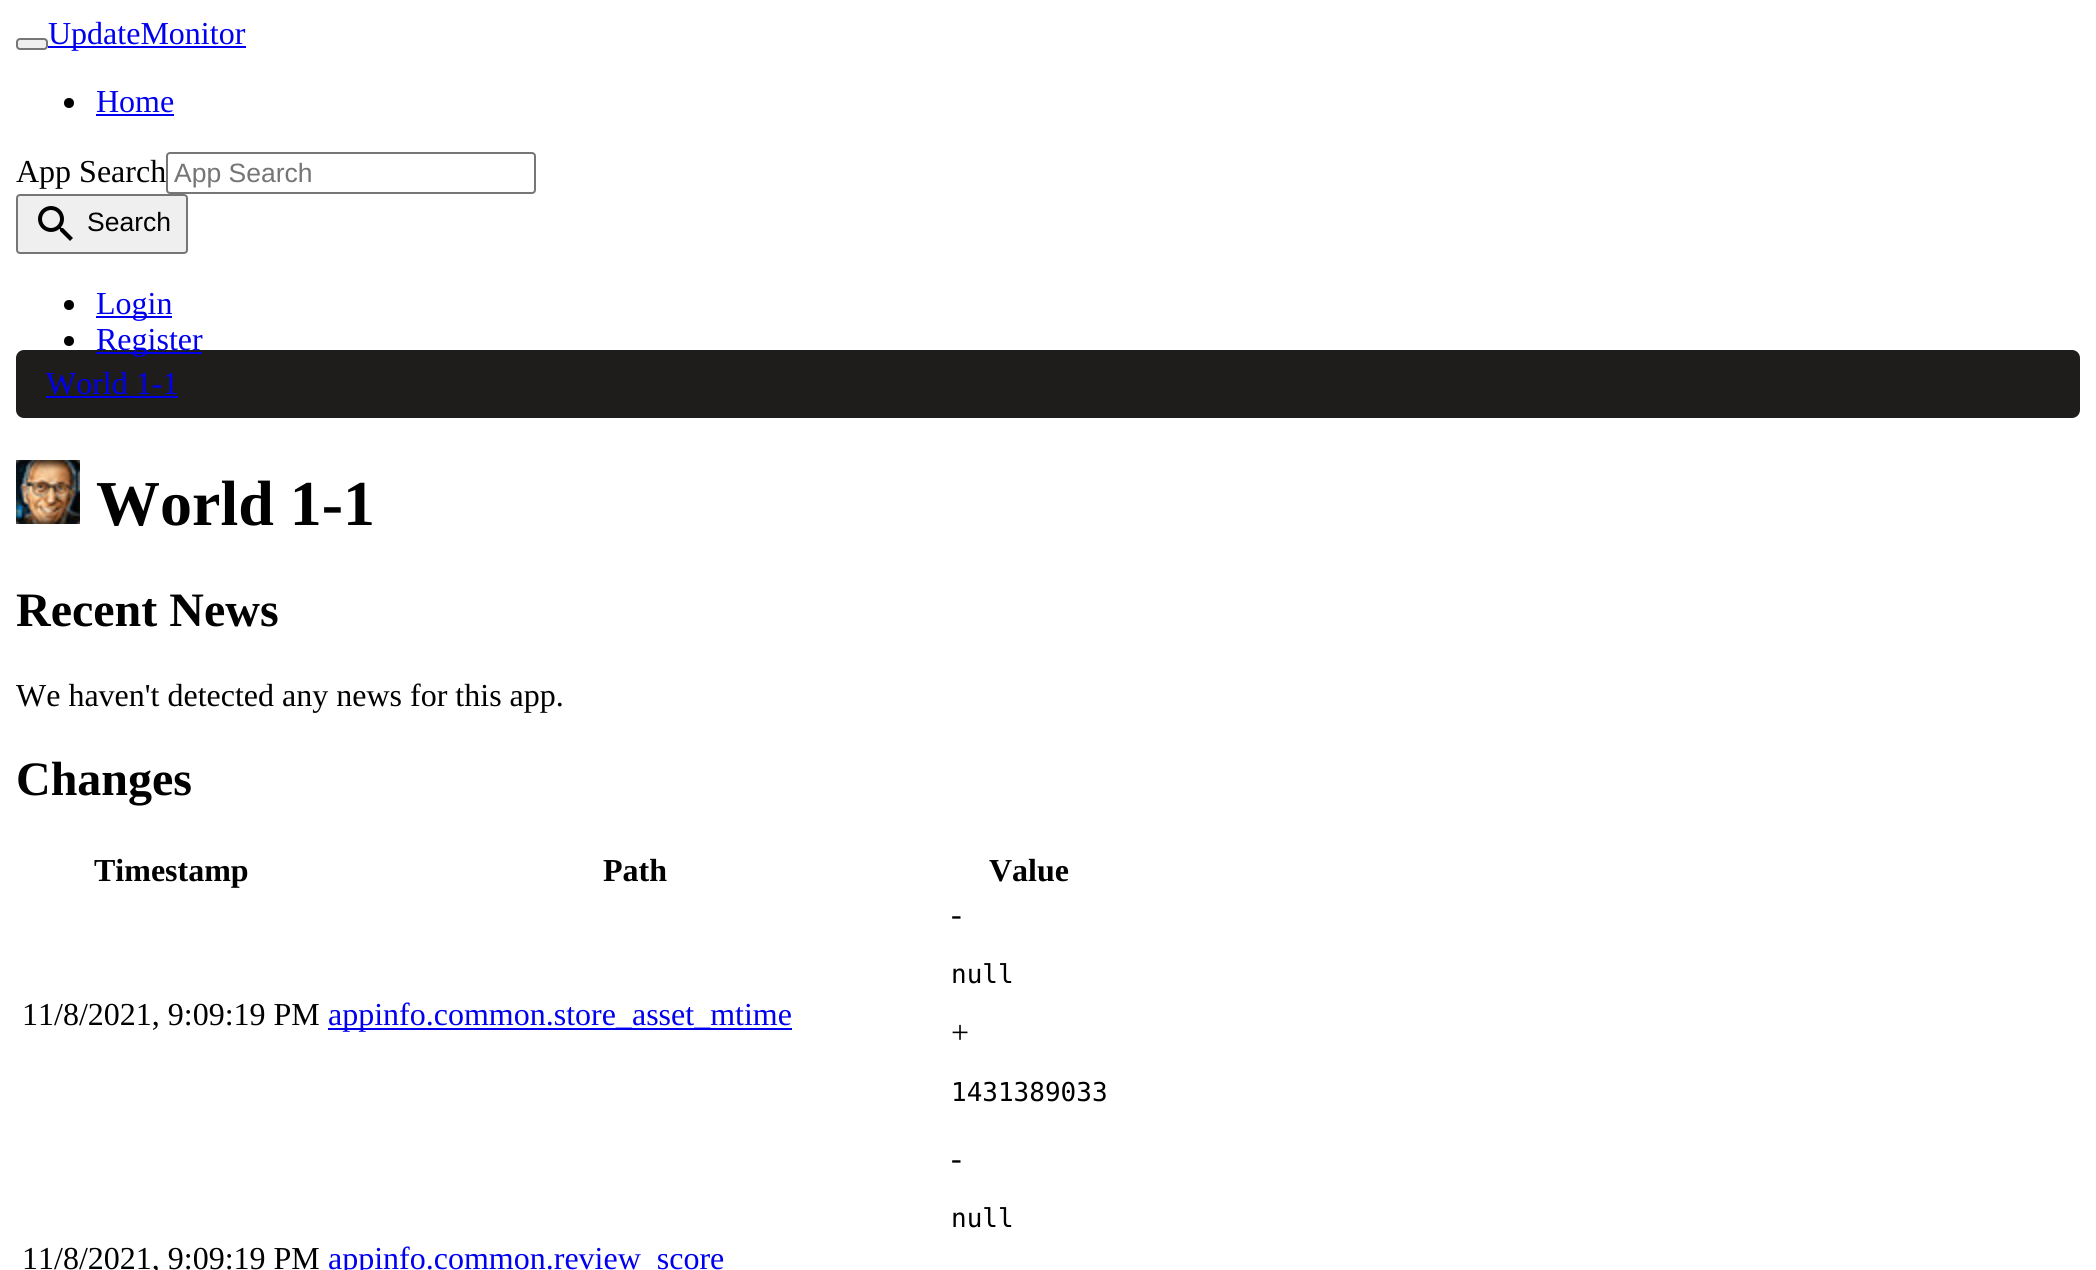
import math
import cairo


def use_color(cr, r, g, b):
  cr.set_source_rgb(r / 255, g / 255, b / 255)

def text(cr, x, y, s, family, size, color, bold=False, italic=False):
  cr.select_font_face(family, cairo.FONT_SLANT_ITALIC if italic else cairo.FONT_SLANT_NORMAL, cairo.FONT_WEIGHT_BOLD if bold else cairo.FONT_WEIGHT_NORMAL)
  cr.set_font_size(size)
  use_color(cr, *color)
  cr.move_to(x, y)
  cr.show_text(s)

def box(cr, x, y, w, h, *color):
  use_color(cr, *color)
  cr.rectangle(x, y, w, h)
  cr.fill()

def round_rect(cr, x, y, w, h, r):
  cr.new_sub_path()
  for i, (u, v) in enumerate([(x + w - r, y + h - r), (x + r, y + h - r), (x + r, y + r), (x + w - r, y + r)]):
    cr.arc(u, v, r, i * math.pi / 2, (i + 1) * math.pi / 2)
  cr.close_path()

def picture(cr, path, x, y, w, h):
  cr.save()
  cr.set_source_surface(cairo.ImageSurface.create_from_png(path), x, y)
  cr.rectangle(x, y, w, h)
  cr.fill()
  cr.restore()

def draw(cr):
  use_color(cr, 255, 255, 255)
  cr.paint()
  use_color(cr, 239, 239, 239)
  round_rect(cr, 17, 39, 30, 10, 3)
  cr.fill_preserve()
  use_color(cr, 118, 118, 118)
  cr.stroke()
  box(cr, 48, 46, 198, 2, 0, 0, 238)
  use_color(cr, 0, 0, 0)
  cr.arc(69, 103, 5, 0, 2 * math.pi)
  cr.fill()
  box(cr, 96, 114, 78, 2, 0, 0, 238)
  round_rect(cr, 167, 153, 368, 40, 3)
  use_color(cr, 118, 118, 118)
  cr.stroke()
  use_color(cr, 239, 239, 239)
  round_rect(cr, 17, 195, 170, 58, 3)
  cr.fill_preserve()
  use_color(cr, 118, 118, 118)
  cr.stroke()
  picture(cr, "img_01.png", 38, 206, 35, 35)
  use_color(cr, 0, 0, 0)
  cr.arc(69, 305, 5, 0, 2 * math.pi)
  cr.fill()
  box(cr, 96, 316, 76, 2, 0, 0, 238)
  use_color(cr, 0, 0, 0)
  cr.arc(69, 341, 5, 0, 2 * math.pi)
  cr.fill()
  use_color(cr, 31, 29, 28)
  round_rect(cr, 16, 350, 2064, 68, 8)
  cr.fill()
  box(cr, 96, 352, 106, 2, 0, 0, 238)
  box(cr, 46, 396, 132, 2, 0, 0, 238)
  picture(cr, "img_02.png", 16, 460, 64, 64)
  box(cr, 328, 1028, 464, 2, 0, 0, 238)
  text(cr, 48, 44, "UpdateMonitor", "Liberation Serif", 32, (0, 0, 238))
  text(cr, 96, 112, "Home", "Liberation Serif", 32, (0, 0, 238))
  text(cr, 16, 182, "App Search", "Liberation Serif", 32, (0, 0, 0))
  text(cr, 174, 182, "App Search", "Liberation Sans", 26.5, (117, 117, 117))
  text(cr, 87, 231, "Search", "Liberation Sans", 26.5, (0, 0, 0))
  text(cr, 96, 314, "Login", "Liberation Serif", 32, (0, 0, 238))
  text(cr, 96, 350, "Register", "Liberation Serif", 32, (0, 0, 238))
  text(cr, 46, 394, "World 1-1", "Liberation Serif", 32, (0, 0, 238))
  text(cr, 96, 525, "World 1-1", "Liberation Serif", 64, (0, 0, 0), bold=True)
  text(cr, 16, 626, "Recent News", "Liberation Serif", 48, (0, 0, 0), bold=True)
  text(cr, 16, 706, "We haven't detected any news for this app.", "Liberation Serif", 32, (0, 0, 0))
  text(cr, 16, 795, "Changes", "Liberation Serif", 48, (0, 0, 0), bold=True)
  text(cr, 94, 881, "Timestamp", "Liberation Serif", 32, (0, 0, 0), bold=True)
  text(cr, 603, 881, "Path", "Liberation Serif", 32, (0, 0, 0), bold=True)
  text(cr, 989, 881, "Value", "Liberation Serif", 32, (0, 0, 0), bold=True)
  text(cr, 22, 1025, "11/8/2021, 9:09:19 PM", "Liberation Serif", 32, (0, 0, 0))
  text(cr, 328, 1025, "appinfo.common.store_asset_mtime", "Liberation Serif", 32, (0, 0, 238))
  text(cr, 951, 925, "-", "Liberation Serif", 32, (0, 0, 0))
  text(cr, 951, 983, "null", "DejaVu Sans Mono", 26, (0, 0, 0))
  text(cr, 951, 1043, "+", "Liberation Serif", 32, (0, 0, 0))
  text(cr, 951, 1101, "1431389033", "DejaVu Sans Mono", 26, (0, 0, 0))
  text(cr, 951, 1169, "-", "Liberation Serif", 32, (0, 0, 0))
  text(cr, 951, 1227, "null", "DejaVu Sans Mono", 26, (0, 0, 0))
  text(cr, 22, 1269, "11/8/2021, 9:09:19 PM", "Liberation Serif", 32, (0, 0, 0))
  text(cr, 328, 1269, "appinfo.common.review_score", "Liberation Serif", 32, (0, 0, 238))


surface = cairo.ImageSurface(cairo.FORMAT_RGB24, 2096, 1270)
cr = cairo.Context(surface)
options = cairo.FontOptions()
options.set_hint_metrics(cairo.HINT_METRICS_OFF)
options.set_hint_style(cairo.HINT_STYLE_NONE)
cr.set_font_options(options)
cr.set_miter_limit(4)
draw(cr)
surface.write_to_png("out.png")
